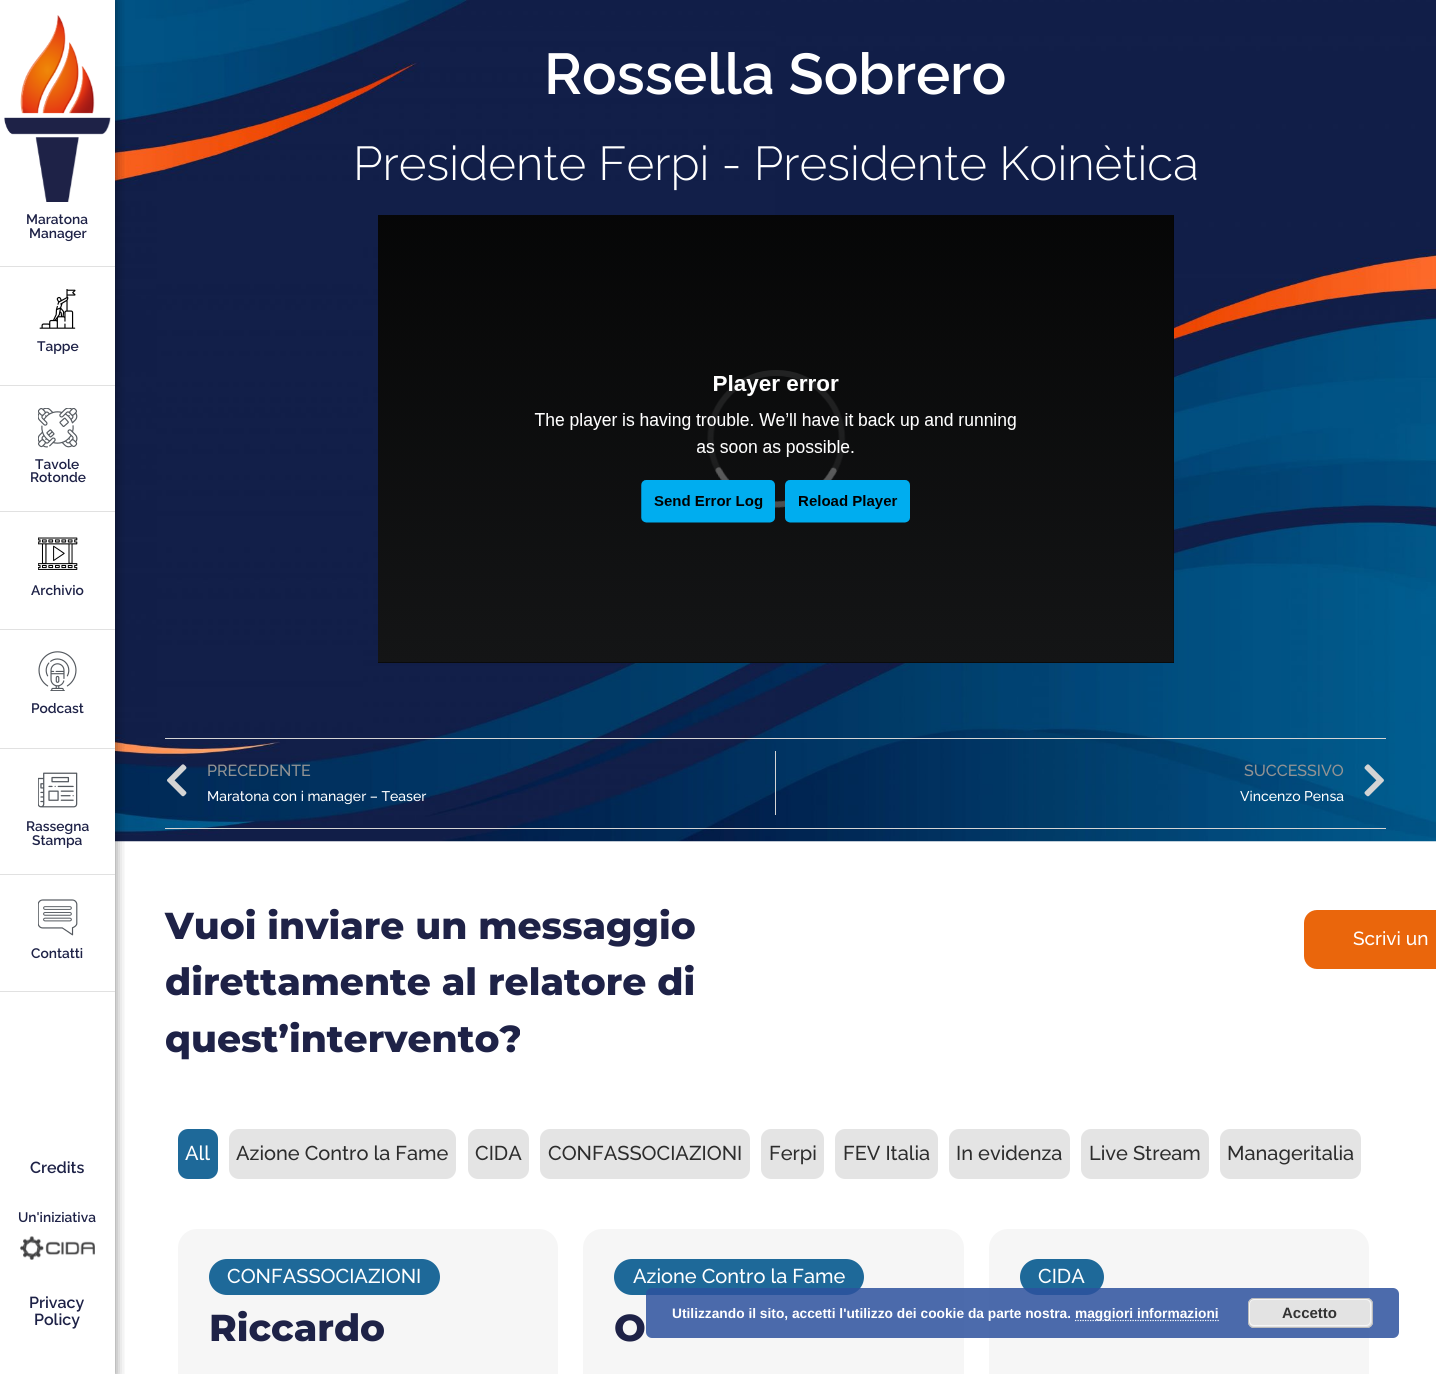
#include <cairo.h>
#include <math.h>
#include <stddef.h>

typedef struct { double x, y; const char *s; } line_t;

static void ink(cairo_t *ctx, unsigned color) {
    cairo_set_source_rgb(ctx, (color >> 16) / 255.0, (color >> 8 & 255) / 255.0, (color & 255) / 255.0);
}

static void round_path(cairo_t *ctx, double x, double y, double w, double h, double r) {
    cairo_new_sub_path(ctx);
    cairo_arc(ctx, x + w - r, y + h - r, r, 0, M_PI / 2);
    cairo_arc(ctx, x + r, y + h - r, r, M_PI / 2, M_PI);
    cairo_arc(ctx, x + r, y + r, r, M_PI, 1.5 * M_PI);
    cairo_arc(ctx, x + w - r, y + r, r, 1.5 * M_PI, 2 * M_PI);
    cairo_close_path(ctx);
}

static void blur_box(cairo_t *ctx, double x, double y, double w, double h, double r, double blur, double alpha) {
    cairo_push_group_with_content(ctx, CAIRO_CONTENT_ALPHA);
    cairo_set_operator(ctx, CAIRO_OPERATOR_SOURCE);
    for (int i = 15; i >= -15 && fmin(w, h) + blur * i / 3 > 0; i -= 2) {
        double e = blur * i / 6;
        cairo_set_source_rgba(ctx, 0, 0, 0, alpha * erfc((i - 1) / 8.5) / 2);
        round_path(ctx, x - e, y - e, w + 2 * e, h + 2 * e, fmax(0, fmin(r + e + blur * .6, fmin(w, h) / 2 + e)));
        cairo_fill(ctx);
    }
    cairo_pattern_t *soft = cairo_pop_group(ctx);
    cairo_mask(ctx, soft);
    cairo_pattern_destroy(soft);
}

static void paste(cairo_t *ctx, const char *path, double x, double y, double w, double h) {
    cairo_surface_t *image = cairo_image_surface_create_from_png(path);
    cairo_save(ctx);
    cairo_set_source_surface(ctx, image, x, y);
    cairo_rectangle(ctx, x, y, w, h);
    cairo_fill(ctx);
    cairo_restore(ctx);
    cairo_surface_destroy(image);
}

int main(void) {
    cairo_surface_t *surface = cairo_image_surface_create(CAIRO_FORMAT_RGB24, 1436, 1374);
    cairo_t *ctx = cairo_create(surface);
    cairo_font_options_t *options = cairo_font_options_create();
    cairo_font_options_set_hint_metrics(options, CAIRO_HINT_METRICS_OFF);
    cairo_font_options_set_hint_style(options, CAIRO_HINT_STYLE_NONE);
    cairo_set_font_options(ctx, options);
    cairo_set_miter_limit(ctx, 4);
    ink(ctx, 0xFFFFFF);
    cairo_paint(ctx);
    paste(ctx, "media/9.png", 115, 0, 1321, 842);
    cairo_save(ctx);
    cairo_rectangle(ctx, 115, 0, 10, 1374);
    cairo_clip(ctx);
    ink(ctx, 0x000000);
    blur_box(ctx, 0, 0, 115, 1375, 0, 6, 0.5);
    cairo_restore(ctx);
    paste(ctx, "media/1.png", 4, 15, 107, 187);
    cairo_select_font_face(ctx, "Raleway SemiBold", CAIRO_FONT_SLANT_NORMAL, CAIRO_FONT_WEIGHT_NORMAL);
    cairo_set_font_size(ctx, 13.75);
    ink(ctx, 0x1E2247);
    cairo_move_to(ctx, 26, 224);
    cairo_show_text(ctx, "Maratona");
    cairo_move_to(ctx, 29, 238);
    cairo_show_text(ctx, "Manager");
    ink(ctx, 0xE1E1E1);
    cairo_rectangle(ctx, 0, 266, 115, 1);
    cairo_fill(ctx);
    paste(ctx, "media/2.png", 39, 289, 37, 40);
    ink(ctx, 0x1E2247);
    cairo_move_to(ctx, 37, 351);
    cairo_show_text(ctx, "Tappe");
    ink(ctx, 0xE1E1E1);
    cairo_rectangle(ctx, 0, 385, 115, 1);
    cairo_fill(ctx);
    paste(ctx, "media/3.png", 38, 408, 40, 40);
    ink(ctx, 0x1E2247);
    cairo_move_to(ctx, 35, 469);
    cairo_show_text(ctx, "Tavole");
    cairo_move_to(ctx, 30, 482);
    cairo_show_text(ctx, "Rotonde");
    ink(ctx, 0xE1E1E1);
    cairo_rectangle(ctx, 0, 511, 115, 1);
    cairo_fill(ctx);
    paste(ctx, "media/4.png", 38, 537, 40, 33);
    ink(ctx, 0x1E2247);
    cairo_move_to(ctx, 31, 595);
    cairo_show_text(ctx, "Archivio");
    ink(ctx, 0xE1E1E1);
    cairo_rectangle(ctx, 0, 629, 115, 1);
    cairo_fill(ctx);
    paste(ctx, "media/5.png", 38, 651, 39, 40);
    ink(ctx, 0x1E2247);
    cairo_move_to(ctx, 31, 713);
    cairo_show_text(ctx, "Podcast");
    ink(ctx, 0xE1E1E1);
    cairo_rectangle(ctx, 0, 748, 115, 1);
    cairo_fill(ctx);
    paste(ctx, "media/6.png", 38, 772, 40, 36);
    ink(ctx, 0x1E2247);
    cairo_move_to(ctx, 26, 831);
    cairo_show_text(ctx, "Rassegna");
    cairo_move_to(ctx, 32, 845);
    cairo_show_text(ctx, "Stampa");
    ink(ctx, 0xE1E1E1);
    cairo_rectangle(ctx, 0, 874, 115, 1);
    cairo_fill(ctx);
    paste(ctx, "media/7.png", 38, 899, 40, 37);
    ink(ctx, 0x1E2247);
    cairo_move_to(ctx, 31, 958);
    cairo_show_text(ctx, "Contatti");
    ink(ctx, 0xE1E1E1);
    cairo_rectangle(ctx, 0, 991, 115, 1);
    cairo_fill(ctx);
    cairo_set_font_size(ctx, 16);
    ink(ctx, 0x1E2247);
    cairo_move_to(ctx, 30, 1173);
    cairo_show_text(ctx, "Credits");
    cairo_set_font_size(ctx, 13.75);
    cairo_move_to(ctx, 18, 1222);
    cairo_show_text(ctx, "Un'iniziativa");
    paste(ctx, "media/8.png", 20, 1236, 75, 24);
    cairo_set_font_size(ctx, 16);
    cairo_move_to(ctx, 29, 1308);
    cairo_show_text(ctx, "Privacy");
    cairo_move_to(ctx, 34, 1325);
    cairo_show_text(ctx, "Policy");
    cairo_set_font_size(ctx, 57.5);
    ink(ctx, 0xFFFFFF);
    cairo_move_to(ctx, 544, 94);
    cairo_show_text(ctx, "Rossella Sobrero");
    cairo_select_font_face(ctx, "Raleway Light", CAIRO_FONT_SLANT_NORMAL, CAIRO_FONT_WEIGHT_NORMAL);
    cairo_set_font_size(ctx, 47.5);
    cairo_move_to(ctx, 353, 180);
    cairo_show_text(ctx, "Presidente Ferpi - Presidente Koinètica");
    ink(ctx, 0x000000);
    cairo_rectangle(ctx, 378, 215, 796, 448);
    cairo_fill(ctx);
    paste(ctx, "media/10.png", 378, 215, 796, 448);
    ink(ctx, 0xD4D4D4);
    cairo_rectangle(ctx, 165, 738, 1221, 1);
    cairo_fill(ctx);
    cairo_rectangle(ctx, 165, 828, 1221, 1);
    cairo_fill(ctx);
    paste(ctx, "media/11.png", 167, 764, 20, 33);
    cairo_select_font_face(ctx, "Raleway Medium", CAIRO_FONT_SLANT_NORMAL, CAIRO_FONT_WEIGHT_NORMAL);
    cairo_set_font_size(ctx, 16);
    ink(ctx, 0x939393);
    cairo_move_to(ctx, 207, 776);
    cairo_show_text(ctx, "PRECEDENTE");
    cairo_set_font_size(ctx, 14);
    ink(ctx, 0xFFFFFF);
    cairo_move_to(ctx, 207, 801);
    cairo_show_text(ctx, "Maratona con i manager – Teaser");
    ink(ctx, 0xD4D4D4);
    cairo_rectangle(ctx, 775, 751, 1, 64);
    cairo_fill(ctx);
    cairo_set_font_size(ctx, 16);
    ink(ctx, 0x939393);
    cairo_move_to(ctx, 1244, 776);
    cairo_show_text(ctx, "SUCCESSIVO");
    cairo_set_font_size(ctx, 14);
    ink(ctx, 0xFFFFFF);
    cairo_move_to(ctx, 1240, 801);
    cairo_show_text(ctx, "Vincenzo Pensa");
    paste(ctx, "media/12.png", 1364, 764, 20, 33);
    cairo_select_font_face(ctx, "Montserrat Thin", CAIRO_FONT_SLANT_NORMAL, CAIRO_FONT_WEIGHT_NORMAL);
    cairo_set_font_size(ctx, 37.5);
    ink(ctx, 0x1E2247);
    {
        static const line_t items[] = {
            {165, 939, "Vuoi inviare un messaggio"},
            {165, 995, "direttamente al relatore di"},
            {165, 1052, "quest’intervento?"},
        };
        for (size_t i = 0; i < sizeof items / sizeof *items; i++) {
            cairo_move_to(ctx, items[i].x, items[i].y);
            cairo_show_text(ctx, items[i].s);
        }
    }
    ink(ctx, 0xEA660C);
    round_path(ctx, 1304, 910, 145, 59, 13);
    cairo_fill(ctx);
    cairo_select_font_face(ctx, "Raleway Medium", CAIRO_FONT_SLANT_NORMAL, CAIRO_FONT_WEIGHT_NORMAL);
    cairo_set_font_size(ctx, 19);
    ink(ctx, 0xFFFFFF);
    cairo_move_to(ctx, 1353, 945);
    cairo_show_text(ctx, "Scrivi un");
    ink(ctx, 0x1E6999);
    round_path(ctx, 178, 1129, 40, 50, 10);
    cairo_fill(ctx);
    cairo_set_font_size(ctx, 20);
    ink(ctx, 0xFFFFFF);
    cairo_move_to(ctx, 185, 1160);
    cairo_show_text(ctx, "All");
    ink(ctx, 0xE4E4E4);
    round_path(ctx, 229, 1129, 227, 50, 10);
    cairo_fill(ctx);
    ink(ctx, 0x2D2D2D);
    cairo_move_to(ctx, 236, 1160);
    cairo_show_text(ctx, "Azione Contro la Fame");
    ink(ctx, 0xE4E4E4);
    round_path(ctx, 468, 1129, 61, 50, 10);
    cairo_fill(ctx);
    ink(ctx, 0x2D2D2D);
    cairo_move_to(ctx, 475, 1160);
    cairo_show_text(ctx, "CIDA");
    ink(ctx, 0xE4E4E4);
    round_path(ctx, 540, 1129, 210, 50, 10);
    cairo_fill(ctx);
    ink(ctx, 0x2D2D2D);
    cairo_move_to(ctx, 548, 1160);
    cairo_show_text(ctx, "CONFASSOCIAZIONI");
    ink(ctx, 0xE4E4E4);
    round_path(ctx, 761, 1129, 63, 50, 10);
    cairo_fill(ctx);
    ink(ctx, 0x2D2D2D);
    cairo_move_to(ctx, 769, 1160);
    cairo_show_text(ctx, "Ferpi");
    ink(ctx, 0xE4E4E4);
    round_path(ctx, 835, 1129, 103, 50, 10);
    cairo_fill(ctx);
    ink(ctx, 0x2D2D2D);
    cairo_move_to(ctx, 843, 1160);
    cairo_show_text(ctx, "FEV Italia");
    ink(ctx, 0xE4E4E4);
    round_path(ctx, 949, 1129, 121, 50, 10);
    cairo_fill(ctx);
    ink(ctx, 0x2D2D2D);
    cairo_move_to(ctx, 956, 1160);
    cairo_show_text(ctx, "In evidenza");
    ink(ctx, 0xE4E4E4);
    round_path(ctx, 1081, 1129, 128, 50, 10);
    cairo_fill(ctx);
    ink(ctx, 0x2D2D2D);
    cairo_move_to(ctx, 1089, 1160);
    cairo_show_text(ctx, "Live Stream");
    ink(ctx, 0xE4E4E4);
    round_path(ctx, 1220, 1129, 141, 50, 10);
    cairo_fill(ctx);
    ink(ctx, 0x2D2D2D);
    cairo_move_to(ctx, 1227, 1160);
    cairo_show_text(ctx, "Manageritalia");
    ink(ctx, 0xF6F6F6);
    round_path(ctx, 178, 1229, 380, 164, 19);
    cairo_fill(ctx);
    ink(ctx, 0x1E6999);
    round_path(ctx, 209, 1259, 231, 36, 18);
    cairo_fill(ctx);
    ink(ctx, 0xFFFFFF);
    cairo_move_to(ctx, 227, 1283);
    cairo_show_text(ctx, "CONFASSOCIAZIONI");
    cairo_select_font_face(ctx, "Montserrat Thin", CAIRO_FONT_SLANT_NORMAL, CAIRO_FONT_WEIGHT_NORMAL);
    cairo_set_font_size(ctx, 37.5);
    ink(ctx, 0x1E2247);
    cairo_move_to(ctx, 209, 1341);
    cairo_show_text(ctx, "Riccardo");
    ink(ctx, 0xF6F6F6);
    round_path(ctx, 583, 1229, 381, 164, 19);
    cairo_fill(ctx);
    ink(ctx, 0x1E6999);
    round_path(ctx, 614, 1259, 250, 36, 18);
    cairo_fill(ctx);
    cairo_select_font_face(ctx, "Raleway Medium", CAIRO_FONT_SLANT_NORMAL, CAIRO_FONT_WEIGHT_NORMAL);
    cairo_set_font_size(ctx, 20);
    ink(ctx, 0xFFFFFF);
    cairo_move_to(ctx, 633, 1283);
    cairo_show_text(ctx, "Azione Contro la Fame");
    cairo_select_font_face(ctx, "Montserrat Thin", CAIRO_FONT_SLANT_NORMAL, CAIRO_FONT_WEIGHT_NORMAL);
    cairo_set_font_size(ctx, 37.5);
    ink(ctx, 0x1E2247);
    cairo_move_to(ctx, 614, 1341);
    cairo_show_text(ctx, "O");
    ink(ctx, 0xF6F6F6);
    round_path(ctx, 989, 1229, 380, 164, 19);
    cairo_fill(ctx);
    ink(ctx, 0x1E6999);
    round_path(ctx, 1020, 1259, 84, 36, 18);
    cairo_fill(ctx);
    cairo_select_font_face(ctx, "Raleway Medium", CAIRO_FONT_SLANT_NORMAL, CAIRO_FONT_WEIGHT_NORMAL);
    cairo_set_font_size(ctx, 20);
    ink(ctx, 0xFFFFFF);
    cairo_move_to(ctx, 1038, 1283);
    cairo_show_text(ctx, "CIDA");
    cairo_set_source_rgba(ctx, 0.176, 0.318, 0.616, 0.85);
    round_path(ctx, 646, 1288, 753, 50, 6);
    cairo_fill(ctx);
    cairo_select_font_face(ctx, "Liberation Sans", CAIRO_FONT_SLANT_NORMAL, CAIRO_FONT_WEIGHT_BOLD);
    cairo_set_font_size(ctx, 13.75);
    ink(ctx, 0xFFFFFF);
    cairo_move_to(ctx, 672, 1318);
    cairo_show_text(ctx, "Utilizzando il sito, accetti l'utilizzo dei cookie da parte nostra.");
    cairo_new_path(ctx);
    cairo_move_to(ctx, 1075, 1320.5);
    cairo_line_to(ctx, 1219, 1320.5);
    cairo_set_line_width(ctx, 1.2);
    cairo_set_dash(ctx, (double[]){1.25, 1.25}, 2, 0);
    cairo_stroke(ctx);
    cairo_move_to(ctx, 1075, 1318);
    cairo_show_text(ctx, "maggiori informazioni");
    ink(ctx, 0xE3E3E3);
    round_path(ctx, 1248, 1298, 125, 30, 6);
    cairo_fill(ctx);
    round_path(ctx, 1249.5, 1299.5, 121, 26, 4.5);
    ink(ctx, 0xF6F6F6);
    cairo_set_line_width(ctx, 1);
    cairo_set_dash(ctx, NULL, 0, 0);
    cairo_stroke(ctx);
    round_path(ctx, 1248.5, 1298.5, 124, 29, 5.5);
    ink(ctx, 0xBBBBBB);
    cairo_stroke(ctx);
    cairo_set_font_size(ctx, 15);
    ink(ctx, 0x333333);
    cairo_move_to(ctx, 1282, 1318);
    cairo_show_text(ctx, "Accetto");
    cairo_surface_write_to_png(surface, "image.png");
    cairo_font_options_destroy(options);
    cairo_destroy(ctx);
    cairo_surface_destroy(surface);
    return 0;
}
